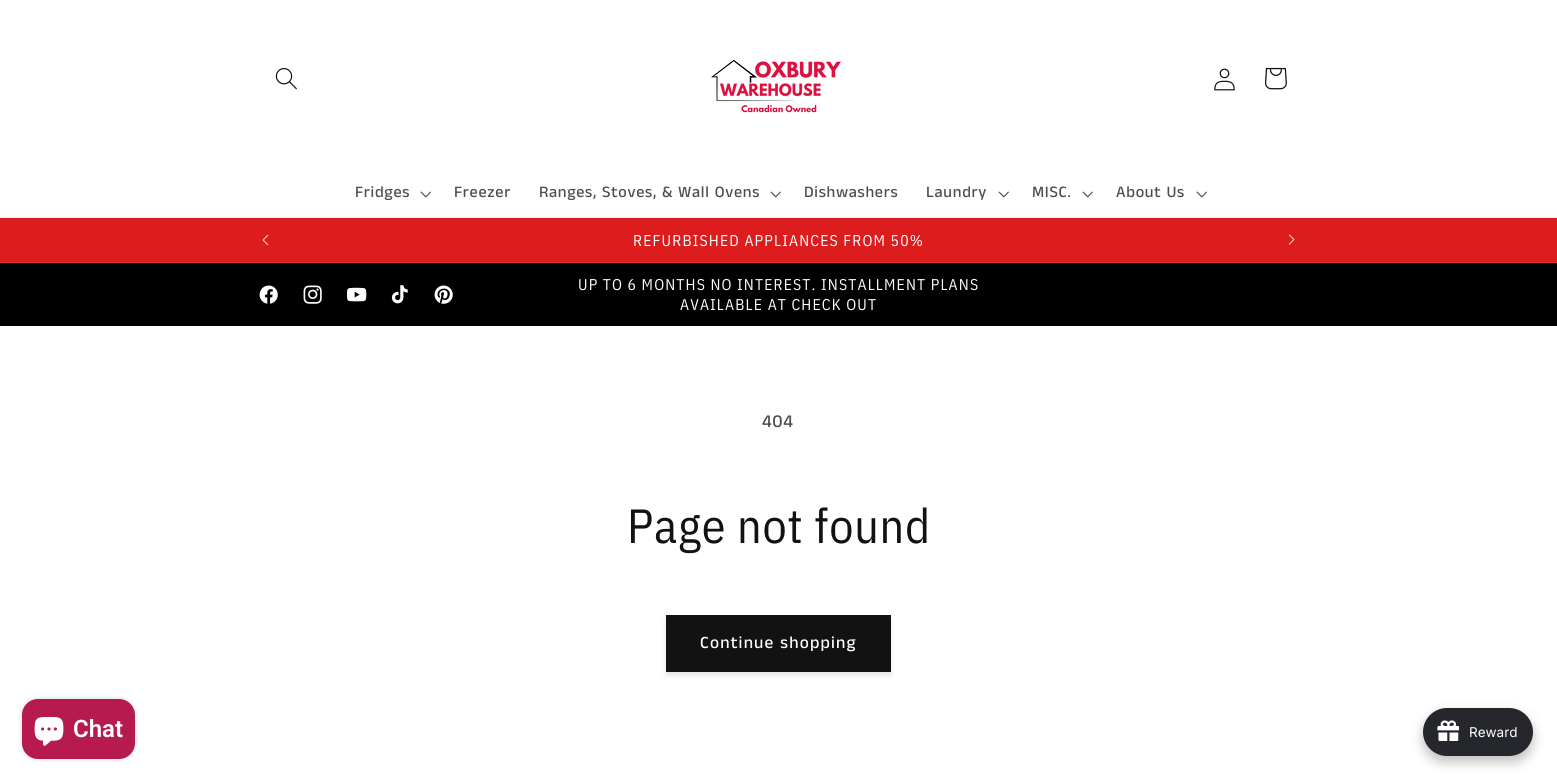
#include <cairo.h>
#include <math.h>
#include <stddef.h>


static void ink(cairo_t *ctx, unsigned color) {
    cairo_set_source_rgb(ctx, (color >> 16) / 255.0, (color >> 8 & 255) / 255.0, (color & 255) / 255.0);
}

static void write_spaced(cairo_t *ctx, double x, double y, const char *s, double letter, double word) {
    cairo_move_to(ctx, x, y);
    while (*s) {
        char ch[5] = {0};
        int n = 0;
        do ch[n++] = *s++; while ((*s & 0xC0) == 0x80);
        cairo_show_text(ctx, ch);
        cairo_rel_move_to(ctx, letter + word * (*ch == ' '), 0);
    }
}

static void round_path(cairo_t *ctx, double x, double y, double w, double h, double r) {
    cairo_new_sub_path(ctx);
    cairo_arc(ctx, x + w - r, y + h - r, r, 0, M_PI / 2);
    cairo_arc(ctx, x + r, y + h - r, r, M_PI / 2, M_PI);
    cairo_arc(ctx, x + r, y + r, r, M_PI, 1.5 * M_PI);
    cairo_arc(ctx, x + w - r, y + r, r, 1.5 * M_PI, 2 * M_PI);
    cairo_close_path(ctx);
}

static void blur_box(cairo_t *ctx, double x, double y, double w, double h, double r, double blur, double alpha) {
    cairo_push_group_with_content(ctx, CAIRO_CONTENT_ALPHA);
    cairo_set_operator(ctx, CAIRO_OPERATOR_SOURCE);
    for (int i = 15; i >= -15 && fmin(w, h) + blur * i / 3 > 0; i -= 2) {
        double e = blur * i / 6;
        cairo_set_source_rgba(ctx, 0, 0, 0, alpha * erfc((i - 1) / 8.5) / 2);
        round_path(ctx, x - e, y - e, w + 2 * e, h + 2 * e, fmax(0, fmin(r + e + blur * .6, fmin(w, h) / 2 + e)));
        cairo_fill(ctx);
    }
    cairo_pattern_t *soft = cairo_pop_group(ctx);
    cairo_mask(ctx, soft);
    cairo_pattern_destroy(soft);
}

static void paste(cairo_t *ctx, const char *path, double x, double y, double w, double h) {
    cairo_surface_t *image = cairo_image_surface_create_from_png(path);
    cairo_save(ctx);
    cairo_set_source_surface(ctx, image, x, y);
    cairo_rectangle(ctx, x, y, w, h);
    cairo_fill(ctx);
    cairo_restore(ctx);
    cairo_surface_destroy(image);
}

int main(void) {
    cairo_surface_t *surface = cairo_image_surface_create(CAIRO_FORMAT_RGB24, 1557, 780);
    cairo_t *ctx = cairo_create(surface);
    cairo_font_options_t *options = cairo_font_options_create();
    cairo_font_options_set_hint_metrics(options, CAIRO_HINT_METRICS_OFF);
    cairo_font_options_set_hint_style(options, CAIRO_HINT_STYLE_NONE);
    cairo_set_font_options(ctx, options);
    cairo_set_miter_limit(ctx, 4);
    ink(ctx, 0xFFFFFF);
    cairo_paint(ctx);
    ink(ctx, 0xECECEC);
    cairo_rectangle(ctx, 0, 217, 1557, 1);
    cairo_fill(ctx);
    paste(ctx, "media/1.png", 275, 68, 22, 22);
    paste(ctx, "media/2.png", 711, 59, 130, 54);
    paste(ctx, "media/3.png", 1214, 68, 21, 23);
    paste(ctx, "media/4.png", 1264, 67, 23, 23);
    cairo_select_font_face(ctx, "Anek Tamil Medium", CAIRO_FONT_SLANT_NORMAL, CAIRO_FONT_WEIGHT_NORMAL);
    cairo_set_font_size(ctx, 16.1);
    ink(ctx, 0x4D4D4D);
    write_spaced(ctx, 355, 197, "Fridges", 0.7, 0);
    paste(ctx, "media/5.png", 420, 191, 11, 7);
    write_spaced(ctx, 454, 197, "Freezer", 0.7, 0);
    write_spaced(ctx, 539, 197, "Ranges, Stoves, & Wall Ovens", 0.7, 0);
    paste(ctx, "media/5.png", 770, 191, 11, 7);
    write_spaced(ctx, 804, 197, "Dishwashers", 0.7, 0);
    write_spaced(ctx, 926, 197, "Laundry", 0.7, 0);
    paste(ctx, "media/5.png", 998, 191, 11, 7);
    write_spaced(ctx, 1032, 197, "MISC.", 0.7, 0);
    paste(ctx, "media/5.png", 1082, 191, 11, 7);
    write_spaced(ctx, 1116, 197, "About Us", 0.7, 0);
    paste(ctx, "media/5.png", 1196, 191, 11, 7);
    ink(ctx, 0xDD1D1D);
    cairo_rectangle(ctx, 0, 218, 1557, 44);
    cairo_fill(ctx);
    ink(ctx, 0xE02F2F);
    cairo_rectangle(ctx, 0, 262, 1557, 1);
    cairo_fill(ctx);
    paste(ctx, "media/6.png", 262, 234, 7, 12);
    cairo_select_font_face(ctx, "IBM Plex Sans Condensed", CAIRO_FONT_SLANT_NORMAL, CAIRO_FONT_WEIGHT_NORMAL);
    cairo_set_font_size(ctx, 15.6);
    ink(ctx, 0xFFFFFF);
    write_spaced(ctx, 633, 246, "REFURBISHED APPLIANCES FROM 50%", 1.15, 0);
    paste(ctx, "media/7.png", 1288, 234, 7, 11);
    ink(ctx, 0x010000);
    cairo_rectangle(ctx, 0, 263, 1557, 63);
    cairo_fill(ctx);
    paste(ctx, "media/8.png", 259, 285, 19, 19);
    paste(ctx, "media/9.png", 303, 285, 19, 19);
    paste(ctx, "media/10.png", 346, 287, 21, 15);
    paste(ctx, "media/11.png", 391, 285, 17, 19);
    paste(ctx, "media/12.png", 434, 285, 19, 19);
    ink(ctx, 0xFFFFFF);
    write_spaced(ctx, 578, 290, "UP TO 6 MONTHS NO INTEREST. INSTALLMENT PLANS", 1.15, 0);
    write_spaced(ctx, 680, 310, "AVAILABLE AT CHECK OUT", 1.15, 0);
    cairo_select_font_face(ctx, "Anek Tamil Medium", CAIRO_FONT_SLANT_NORMAL, CAIRO_FONT_WEIGHT_NORMAL);
    cairo_set_font_size(ctx, 18);
    ink(ctx, 0x4D4D4D);
    write_spaced(ctx, 762, 427, "404", 0.7, 0);
    cairo_select_font_face(ctx, "IBM Plex Sans Condensed", CAIRO_FONT_SLANT_NORMAL, CAIRO_FONT_WEIGHT_NORMAL);
    cairo_set_font_size(ctx, 48);
    ink(ctx, 0x121212);
    write_spaced(ctx, 627, 543, "Page not found", 0.75, 0);
    ink(ctx, 0x000000);
    blur_box(ctx, 666, 619, 225, 57, 0, 2.5, 0.1);
    ink(ctx, 0x121212);
    cairo_rectangle(ctx, 666, 615, 225, 57);
    cairo_fill(ctx);
    cairo_select_font_face(ctx, "Anek Tamil Medium", CAIRO_FONT_SLANT_NORMAL, CAIRO_FONT_WEIGHT_NORMAL);
    cairo_set_font_size(ctx, 17.25);
    ink(ctx, 0xFFFFFF);
    write_spaced(ctx, 700, 648, "Continue shopping", 1.15, 0);
    ink(ctx, 0x000000);
    blur_box(ctx, 22, 699, 113, 60, 16, 2.5, 0.15);
    ink(ctx, 0xB71A4E);
    round_path(ctx, 22, 699, 113, 60, 16);
    cairo_fill(ctx);
    paste(ctx, "media/13.png", 34, 717, 30, 29);
    cairo_select_font_face(ctx, "Roboto SemiBold", CAIRO_FONT_SLANT_NORMAL, CAIRO_FONT_WEIGHT_NORMAL);
    cairo_set_font_size(ctx, 24);
    ink(ctx, 0xFFFFFF);
    cairo_move_to(ctx, 73, 737);
    cairo_show_text(ctx, "Chat");
    ink(ctx, 0x000000);
    blur_box(ctx, 1423, 714, 110, 48, 24, 6, 0.25);
    ink(ctx, 0x25272C);
    round_path(ctx, 1423, 708, 110, 48, 24);
    cairo_fill(ctx);
    paste(ctx, "media/14.png", 1437, 720, 22, 21);
    cairo_select_font_face(ctx, "Inter", CAIRO_FONT_SLANT_NORMAL, CAIRO_FONT_WEIGHT_NORMAL);
    cairo_set_font_size(ctx, 13.5);
    ink(ctx, 0xFFFFFF);
    cairo_move_to(ctx, 1469, 737);
    cairo_show_text(ctx, "Reward");
    cairo_surface_write_to_png(surface, "image.png");
    cairo_font_options_destroy(options);
    cairo_destroy(ctx);
    cairo_surface_destroy(surface);
    return 0;
}
